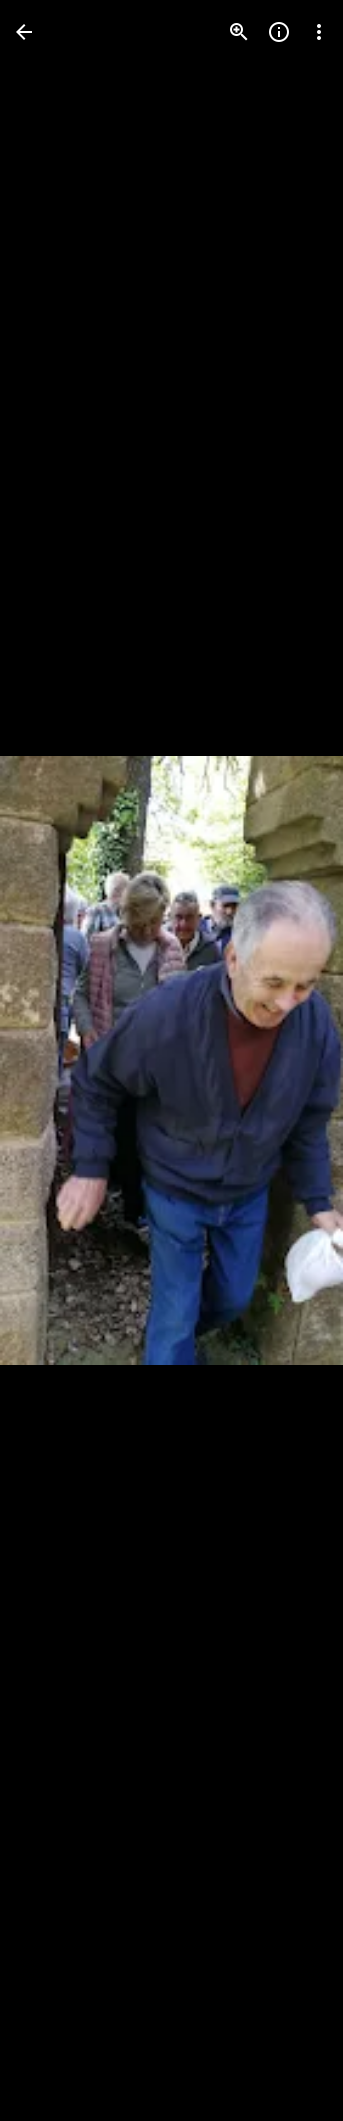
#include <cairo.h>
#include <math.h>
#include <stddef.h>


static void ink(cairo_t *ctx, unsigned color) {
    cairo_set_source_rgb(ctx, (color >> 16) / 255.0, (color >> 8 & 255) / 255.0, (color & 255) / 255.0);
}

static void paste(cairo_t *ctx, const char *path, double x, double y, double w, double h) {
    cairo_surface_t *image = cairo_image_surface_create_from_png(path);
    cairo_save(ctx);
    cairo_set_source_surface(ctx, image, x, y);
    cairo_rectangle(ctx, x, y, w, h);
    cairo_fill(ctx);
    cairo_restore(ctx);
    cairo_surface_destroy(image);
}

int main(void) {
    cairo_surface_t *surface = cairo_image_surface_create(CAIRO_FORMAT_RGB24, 343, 2121);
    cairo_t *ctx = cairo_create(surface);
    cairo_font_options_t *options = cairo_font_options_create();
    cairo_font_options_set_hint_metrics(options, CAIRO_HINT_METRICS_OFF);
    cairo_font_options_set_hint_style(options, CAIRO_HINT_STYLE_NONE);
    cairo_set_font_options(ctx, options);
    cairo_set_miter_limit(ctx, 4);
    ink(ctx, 0x000000);
    cairo_paint(ctx);
    paste(ctx, "media/1.png", 16, 24, 16, 16);
    paste(ctx, "media/2.png", 230, 23, 18, 18);
    paste(ctx, "media/3.png", 269, 22, 20, 20);
    paste(ctx, "media/4.png", 317, 24, 4, 16);
    paste(ctx, "media/5.png", 0, 756, 343, 609);
    cairo_surface_write_to_png(surface, "image.png");
    cairo_font_options_destroy(options);
    cairo_destroy(ctx);
    cairo_surface_destroy(surface);
    return 0;
}
